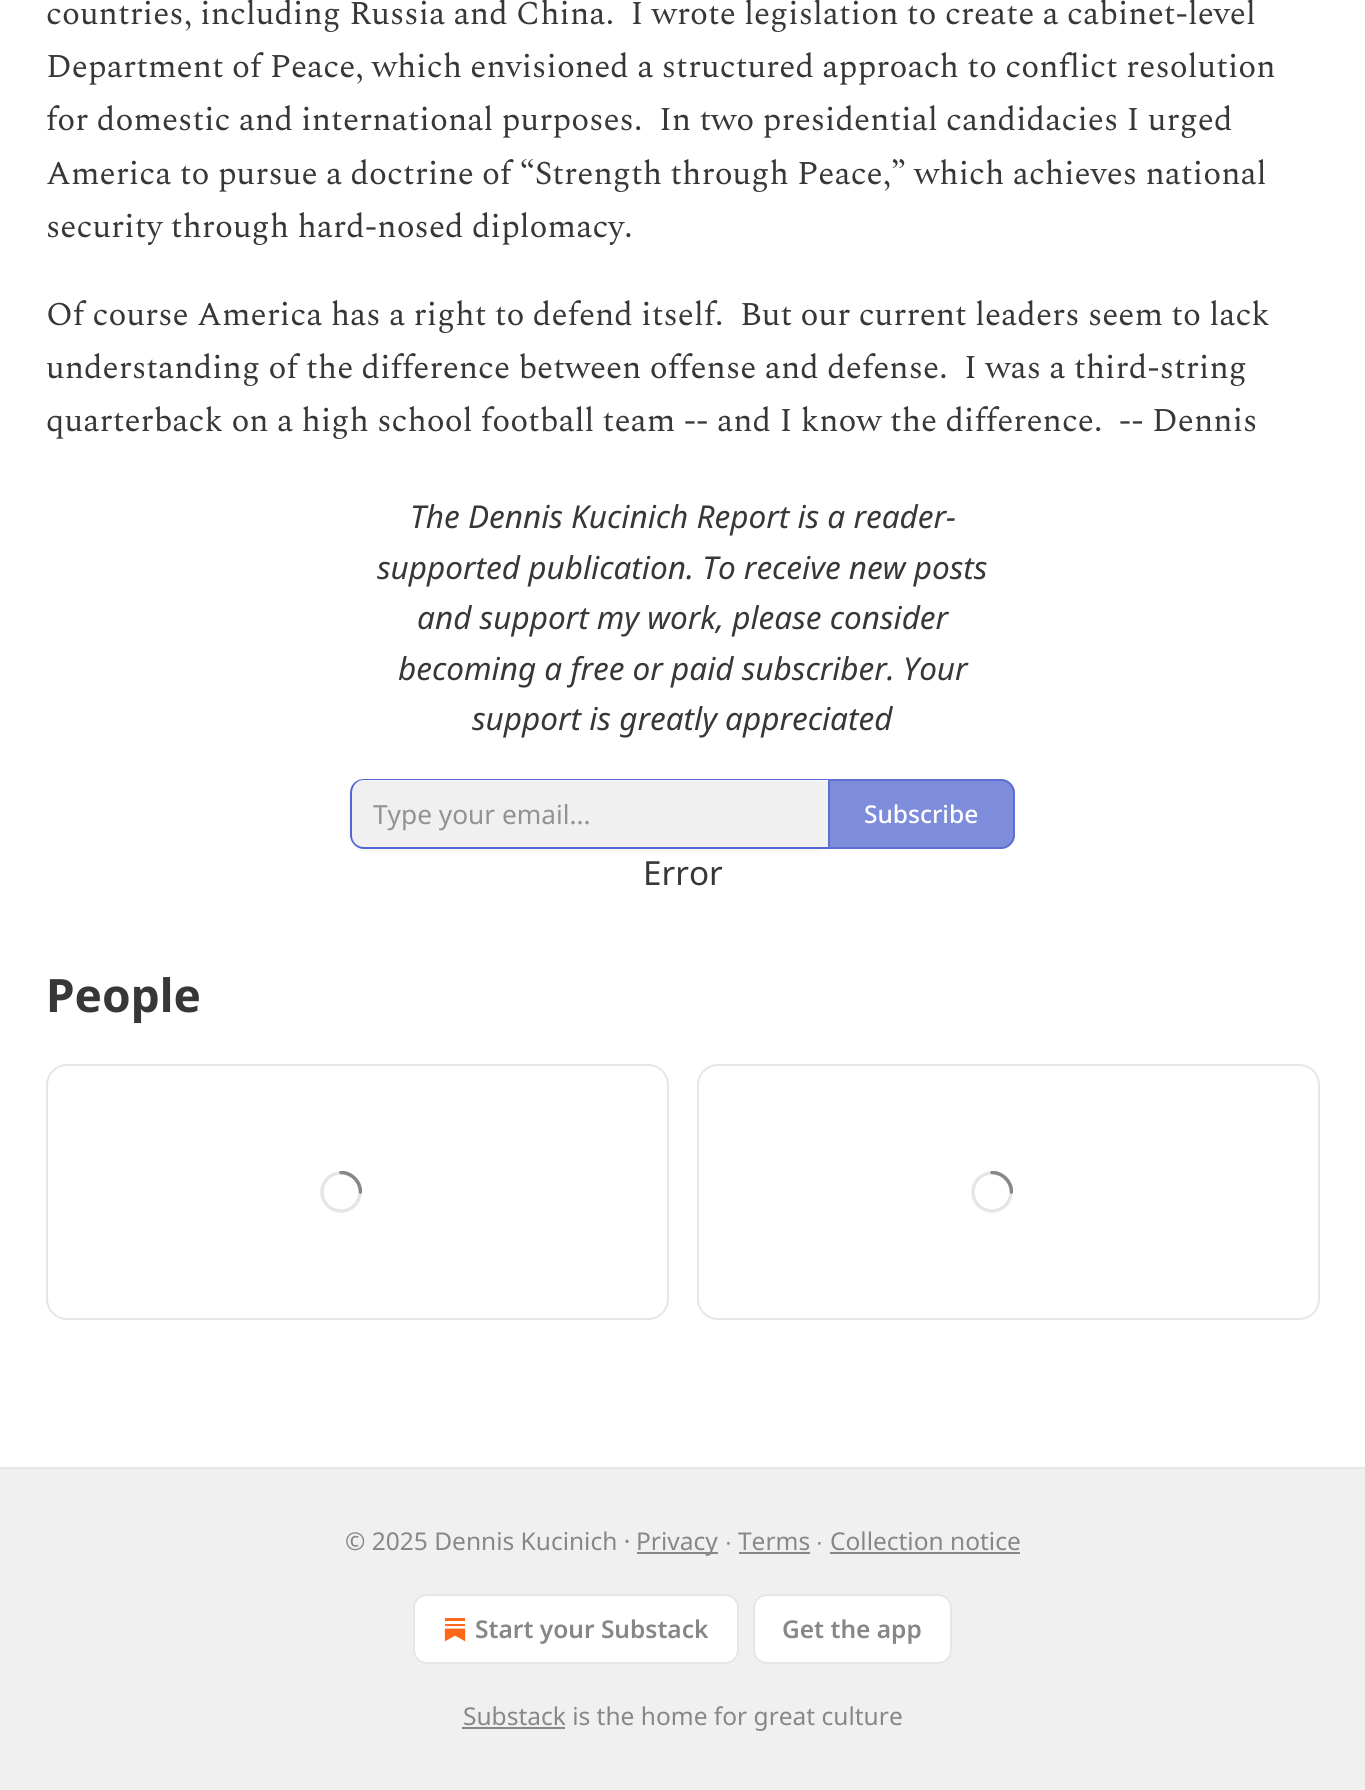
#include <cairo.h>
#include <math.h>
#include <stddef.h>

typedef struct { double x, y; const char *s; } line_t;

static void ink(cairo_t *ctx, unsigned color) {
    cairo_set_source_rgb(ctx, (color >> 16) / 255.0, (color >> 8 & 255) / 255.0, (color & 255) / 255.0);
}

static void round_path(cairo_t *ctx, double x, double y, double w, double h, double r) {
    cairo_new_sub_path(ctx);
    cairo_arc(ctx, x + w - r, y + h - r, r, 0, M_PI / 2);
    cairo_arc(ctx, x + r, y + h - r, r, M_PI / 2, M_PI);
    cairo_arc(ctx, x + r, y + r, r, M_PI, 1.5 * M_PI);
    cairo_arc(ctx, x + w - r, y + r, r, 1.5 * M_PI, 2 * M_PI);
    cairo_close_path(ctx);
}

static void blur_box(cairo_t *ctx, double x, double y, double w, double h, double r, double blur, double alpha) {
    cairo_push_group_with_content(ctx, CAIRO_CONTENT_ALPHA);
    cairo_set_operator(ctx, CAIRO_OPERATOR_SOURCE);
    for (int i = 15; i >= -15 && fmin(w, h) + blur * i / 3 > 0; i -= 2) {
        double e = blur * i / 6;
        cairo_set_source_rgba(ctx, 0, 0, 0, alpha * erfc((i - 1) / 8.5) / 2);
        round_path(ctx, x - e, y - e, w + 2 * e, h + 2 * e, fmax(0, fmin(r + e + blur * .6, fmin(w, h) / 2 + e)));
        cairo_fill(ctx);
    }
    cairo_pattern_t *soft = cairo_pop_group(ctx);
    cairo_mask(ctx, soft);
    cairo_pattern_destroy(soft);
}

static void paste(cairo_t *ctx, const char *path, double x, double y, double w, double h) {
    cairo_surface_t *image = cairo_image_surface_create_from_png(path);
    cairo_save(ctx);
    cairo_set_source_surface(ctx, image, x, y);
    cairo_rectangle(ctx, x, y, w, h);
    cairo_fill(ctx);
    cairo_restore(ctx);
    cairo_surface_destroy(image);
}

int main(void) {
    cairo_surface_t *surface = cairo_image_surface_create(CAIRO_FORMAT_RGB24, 1365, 1790);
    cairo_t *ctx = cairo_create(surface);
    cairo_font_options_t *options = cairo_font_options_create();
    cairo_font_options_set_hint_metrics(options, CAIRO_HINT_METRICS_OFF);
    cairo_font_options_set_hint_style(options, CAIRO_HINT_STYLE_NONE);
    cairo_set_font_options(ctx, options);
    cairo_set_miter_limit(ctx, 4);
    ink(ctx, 0xFFFFFF);
    cairo_paint(ctx);
    cairo_select_font_face(ctx, "Spectral", CAIRO_FONT_SLANT_NORMAL, CAIRO_FONT_WEIGHT_NORMAL);
    cairo_set_font_size(ctx, 33.25);
    ink(ctx, 0x363737);
    {
        static const line_t items[] = {
            {46, 24, "countries, including Russia and China.  I wrote legislation to create a cabinet-level"},
            {46, 77, "Department of Peace, which envisioned a structured approach to conflict resolution"},
            {46, 130, "for domestic and international purposes.  In two presidential candidacies I urged"},
            {46, 184, "America to pursue a doctrine of “Strength through Peace,” which achieves national"},
            {46, 237, "security through hard-nosed diplomacy."},
            {46, 325, "Of course America has a right to defend itself.  But our current leaders seem to lack"},
            {46, 378, "understanding of the difference between offense and defense.  I was a third-string"},
            {46, 431, "quarterback on a high school football team -- and I know the difference.  -- Dennis"},
        };
        for (size_t i = 0; i < sizeof items / sizeof *items; i++) {
            cairo_move_to(ctx, items[i].x, items[i].y);
            cairo_show_text(ctx, items[i].s);
        }
    }
    cairo_select_font_face(ctx, "Noto Sans", CAIRO_FONT_SLANT_ITALIC, CAIRO_FONT_WEIGHT_NORMAL);
    cairo_set_font_size(ctx, 31.5);
    {
        static const line_t items[] = {
            {410, 528, "The Dennis Kucinich Report is a reader-"},
            {377, 579, "supported publication. To receive new posts"},
            {417, 629, "and support my work, please consider"},
            {398, 680, "becoming a free or paid subscriber. Your"},
            {472, 730, "support is greatly appreciated"},
        };
        for (size_t i = 0; i < sizeof items / sizeof *items; i++) {
            cairo_move_to(ctx, items[i].x, items[i].y);
            cairo_show_text(ctx, items[i].s);
        }
    }
    ink(ctx, 0x000000);
    blur_box(ctx, 350, 781, 478, 70, 14, 2, 0.05);
    ink(ctx, 0xF0F0F0);
    cairo_new_path(ctx);
    cairo_move_to(ctx, 364, 781);
    cairo_line_to(ctx, 828, 781);
    cairo_line_to(ctx, 828, 847);
    cairo_line_to(ctx, 364, 847);
    cairo_curve_to(ctx, 357.5, 847, 352, 841.5, 352, 835);
    cairo_line_to(ctx, 352, 793);
    cairo_curve_to(ctx, 352, 786.5, 357.5, 781, 364, 781);
    cairo_close_path(ctx);
    cairo_fill(ctx);
    ink(ctx, 0x5365D0);
    cairo_set_fill_rule(ctx, CAIRO_FILL_RULE_EVEN_ODD);
    cairo_new_path(ctx);
    cairo_move_to(ctx, 364, 779);
    cairo_line_to(ctx, 828, 779);
    cairo_line_to(ctx, 828, 849);
    cairo_line_to(ctx, 364, 849);
    cairo_curve_to(ctx, 356, 849, 350, 842, 350, 835);
    cairo_line_to(ctx, 350, 793);
    cairo_curve_to(ctx, 350, 785, 356, 779, 364, 779);
    cairo_close_path(ctx);
    cairo_move_to(ctx, 364, 780);
    cairo_line_to(ctx, 828, 780);
    cairo_line_to(ctx, 828, 847);
    cairo_line_to(ctx, 364, 847);
    cairo_curve_to(ctx, 357, 847, 352, 842, 352, 835);
    cairo_line_to(ctx, 352, 793);
    cairo_curve_to(ctx, 352, 786, 357, 780, 364, 780);
    cairo_close_path(ctx);
    cairo_fill(ctx);
    cairo_select_font_face(ctx, "Noto Sans", CAIRO_FONT_SLANT_NORMAL, CAIRO_FONT_WEIGHT_NORMAL);
    cairo_set_font_size(ctx, 26.25);
    ink(ctx, 0x929292);
    cairo_move_to(ctx, 373, 824);
    cairo_show_text(ctx, "Type your email...");
    cairo_set_source_rgba(ctx, 0.325, 0.396, 0.816, 0.75);
    cairo_new_path(ctx);
    cairo_move_to(ctx, 828, 779);
    cairo_line_to(ctx, 1001, 779);
    cairo_curve_to(ctx, 1008.5, 779, 1015, 785.5, 1015, 793);
    cairo_line_to(ctx, 1015, 835);
    cairo_curve_to(ctx, 1015, 842.5, 1008.5, 849, 1001, 849);
    cairo_line_to(ctx, 828, 849);
    cairo_close_path(ctx);
    cairo_fill(ctx);
    cairo_new_path(ctx);
    cairo_move_to(ctx, 829, 780);
    cairo_line_to(ctx, 1001, 780);
    cairo_curve_to(ctx, 1008, 780, 1014, 786, 1014, 793);
    cairo_line_to(ctx, 1014, 835);
    cairo_curve_to(ctx, 1014, 842, 1008, 848, 1001, 848);
    cairo_line_to(ctx, 829, 848);
    cairo_close_path(ctx);
    cairo_stroke(ctx);
    cairo_select_font_face(ctx, "Noto Sans Medium", CAIRO_FONT_SLANT_NORMAL, CAIRO_FONT_WEIGHT_NORMAL);
    cairo_set_font_size(ctx, 24.5);
    ink(ctx, 0xFFFFFF);
    cairo_move_to(ctx, 864, 823);
    cairo_show_text(ctx, "Subscribe");
    cairo_select_font_face(ctx, "Noto Sans", CAIRO_FONT_SLANT_NORMAL, CAIRO_FONT_WEIGHT_NORMAL);
    cairo_set_font_size(ctx, 33.25);
    ink(ctx, 0x363737);
    cairo_move_to(ctx, 643, 885);
    cairo_show_text(ctx, "Error");
    cairo_select_font_face(ctx, "Noto Sans", CAIRO_FONT_SLANT_NORMAL, CAIRO_FONT_WEIGHT_BOLD);
    cairo_set_font_size(ctx, 46);
    cairo_move_to(ctx, 46, 1012);
    cairo_show_text(ctx, "People");
    round_path(ctx, 47, 1065, 621, 254, 20);
    ink(ctx, 0xE6E6E6);
    cairo_stroke(ctx);
    cairo_arc(ctx, 341, 1192, 19, 0, 2 * M_PI);
    cairo_set_line_width(ctx, 3.5);
    cairo_stroke(ctx);
    cairo_save(ctx);
    cairo_set_fill_rule(ctx, CAIRO_FILL_RULE_WINDING);
    cairo_rectangle(ctx, 320, 1171, 42, 42);
    cairo_clip(ctx);
    cairo_new_path(ctx);
    cairo_move_to(ctx, 341, 1172.5);
    cairo_curve_to(ctx, 351.5, 1172.5, 360.5, 1181.5, 360.5, 1192);
    ink(ctx, 0x868787);
    cairo_set_line_cap(ctx, CAIRO_LINE_CAP_ROUND);
    cairo_stroke(ctx);
    cairo_restore(ctx);
    round_path(ctx, 698, 1065, 621, 254, 20);
    cairo_set_line_width(ctx, 2);
    cairo_stroke(ctx);
    cairo_arc(ctx, 992, 1192, 19, 0, 2 * M_PI);
    cairo_set_line_width(ctx, 3.5);
    cairo_stroke(ctx);
    cairo_save(ctx);
    cairo_set_fill_rule(ctx, CAIRO_FILL_RULE_WINDING);
    cairo_rectangle(ctx, 971, 1171, 42, 42);
    cairo_clip(ctx);
    cairo_new_path(ctx);
    cairo_move_to(ctx, 992, 1172.5);
    cairo_curve_to(ctx, 1002.5, 1172.5, 1011.5, 1181.5, 1011.5, 1192);
    ink(ctx, 0x868787);
    cairo_set_line_cap(ctx, CAIRO_LINE_CAP_ROUND);
    cairo_stroke(ctx);
    cairo_restore(ctx);
    ink(ctx, 0xF0F0F0);
    cairo_rectangle(ctx, 0, 1469, 1365, 321);
    cairo_fill(ctx);
    ink(ctx, 0xE6E6E6);
    cairo_rectangle(ctx, 0, 1467, 1365, 2);
    cairo_fill(ctx);
    cairo_select_font_face(ctx, "Noto Sans", CAIRO_FONT_SLANT_NORMAL, CAIRO_FONT_WEIGHT_NORMAL);
    cairo_set_font_size(ctx, 24.5);
    ink(ctx, 0x868787);
    cairo_move_to(ctx, 345, 1550);
    cairo_show_text(ctx, "© 2025 Dennis Kucinich ·");
    cairo_rectangle(ctx, 637, 1552, 81, 2);
    cairo_fill(ctx);
    cairo_move_to(ctx, 636, 1550);
    cairo_show_text(ctx, "Privacy");
    cairo_select_font_face(ctx, "Liberation Sans", CAIRO_FONT_SLANT_NORMAL, CAIRO_FONT_WEIGHT_NORMAL);
    cairo_move_to(ctx, 725, 1550);
    cairo_show_text(ctx, "∙");
    cairo_select_font_face(ctx, "Noto Sans", CAIRO_FONT_SLANT_NORMAL, CAIRO_FONT_WEIGHT_NORMAL);
    cairo_move_to(ctx, 738, 1550);
    cairo_show_text(ctx, "Terms");
    cairo_rectangle(ctx, 739, 1552, 71, 2);
    cairo_fill(ctx);
    cairo_select_font_face(ctx, "Liberation Sans", CAIRO_FONT_SLANT_NORMAL, CAIRO_FONT_WEIGHT_NORMAL);
    cairo_move_to(ctx, 816, 1550);
    cairo_show_text(ctx, "∙");
    cairo_select_font_face(ctx, "Noto Sans", CAIRO_FONT_SLANT_NORMAL, CAIRO_FONT_WEIGHT_NORMAL);
    cairo_move_to(ctx, 830, 1550);
    cairo_show_text(ctx, "Collection notice");
    cairo_rectangle(ctx, 830, 1552, 190, 2);
    cairo_fill(ctx);
    ink(ctx, 0xFFFFFF);
    round_path(ctx, 414, 1595, 324, 68, 13);
    cairo_fill_preserve(ctx);
    ink(ctx, 0xE6E6E6);
    cairo_set_line_width(ctx, 2);
    cairo_stroke(ctx);
    paste(ctx, "media/1.png", 444, 1618, 22, 24);
    cairo_select_font_face(ctx, "Noto Sans SemiBold", CAIRO_FONT_SLANT_NORMAL, CAIRO_FONT_WEIGHT_NORMAL);
    ink(ctx, 0x868787);
    cairo_move_to(ctx, 475, 1638);
    cairo_show_text(ctx, "Start your Substack");
    ink(ctx, 0xFFFFFF);
    round_path(ctx, 754, 1595, 197, 68, 13);
    cairo_fill_preserve(ctx);
    ink(ctx, 0xE6E6E6);
    cairo_stroke(ctx);
    ink(ctx, 0x868787);
    cairo_move_to(ctx, 782, 1638);
    cairo_show_text(ctx, "Get the app");
    cairo_rectangle(ctx, 462, 1727, 103, 2);
    cairo_fill(ctx);
    cairo_select_font_face(ctx, "Noto Sans", CAIRO_FONT_SLANT_NORMAL, CAIRO_FONT_WEIGHT_NORMAL);
    cairo_move_to(ctx, 463, 1725);
    cairo_show_text(ctx, "Substack is the home for great culture");
    cairo_surface_write_to_png(surface, "image.png");
    cairo_font_options_destroy(options);
    cairo_destroy(ctx);
    cairo_surface_destroy(surface);
    return 0;
}
